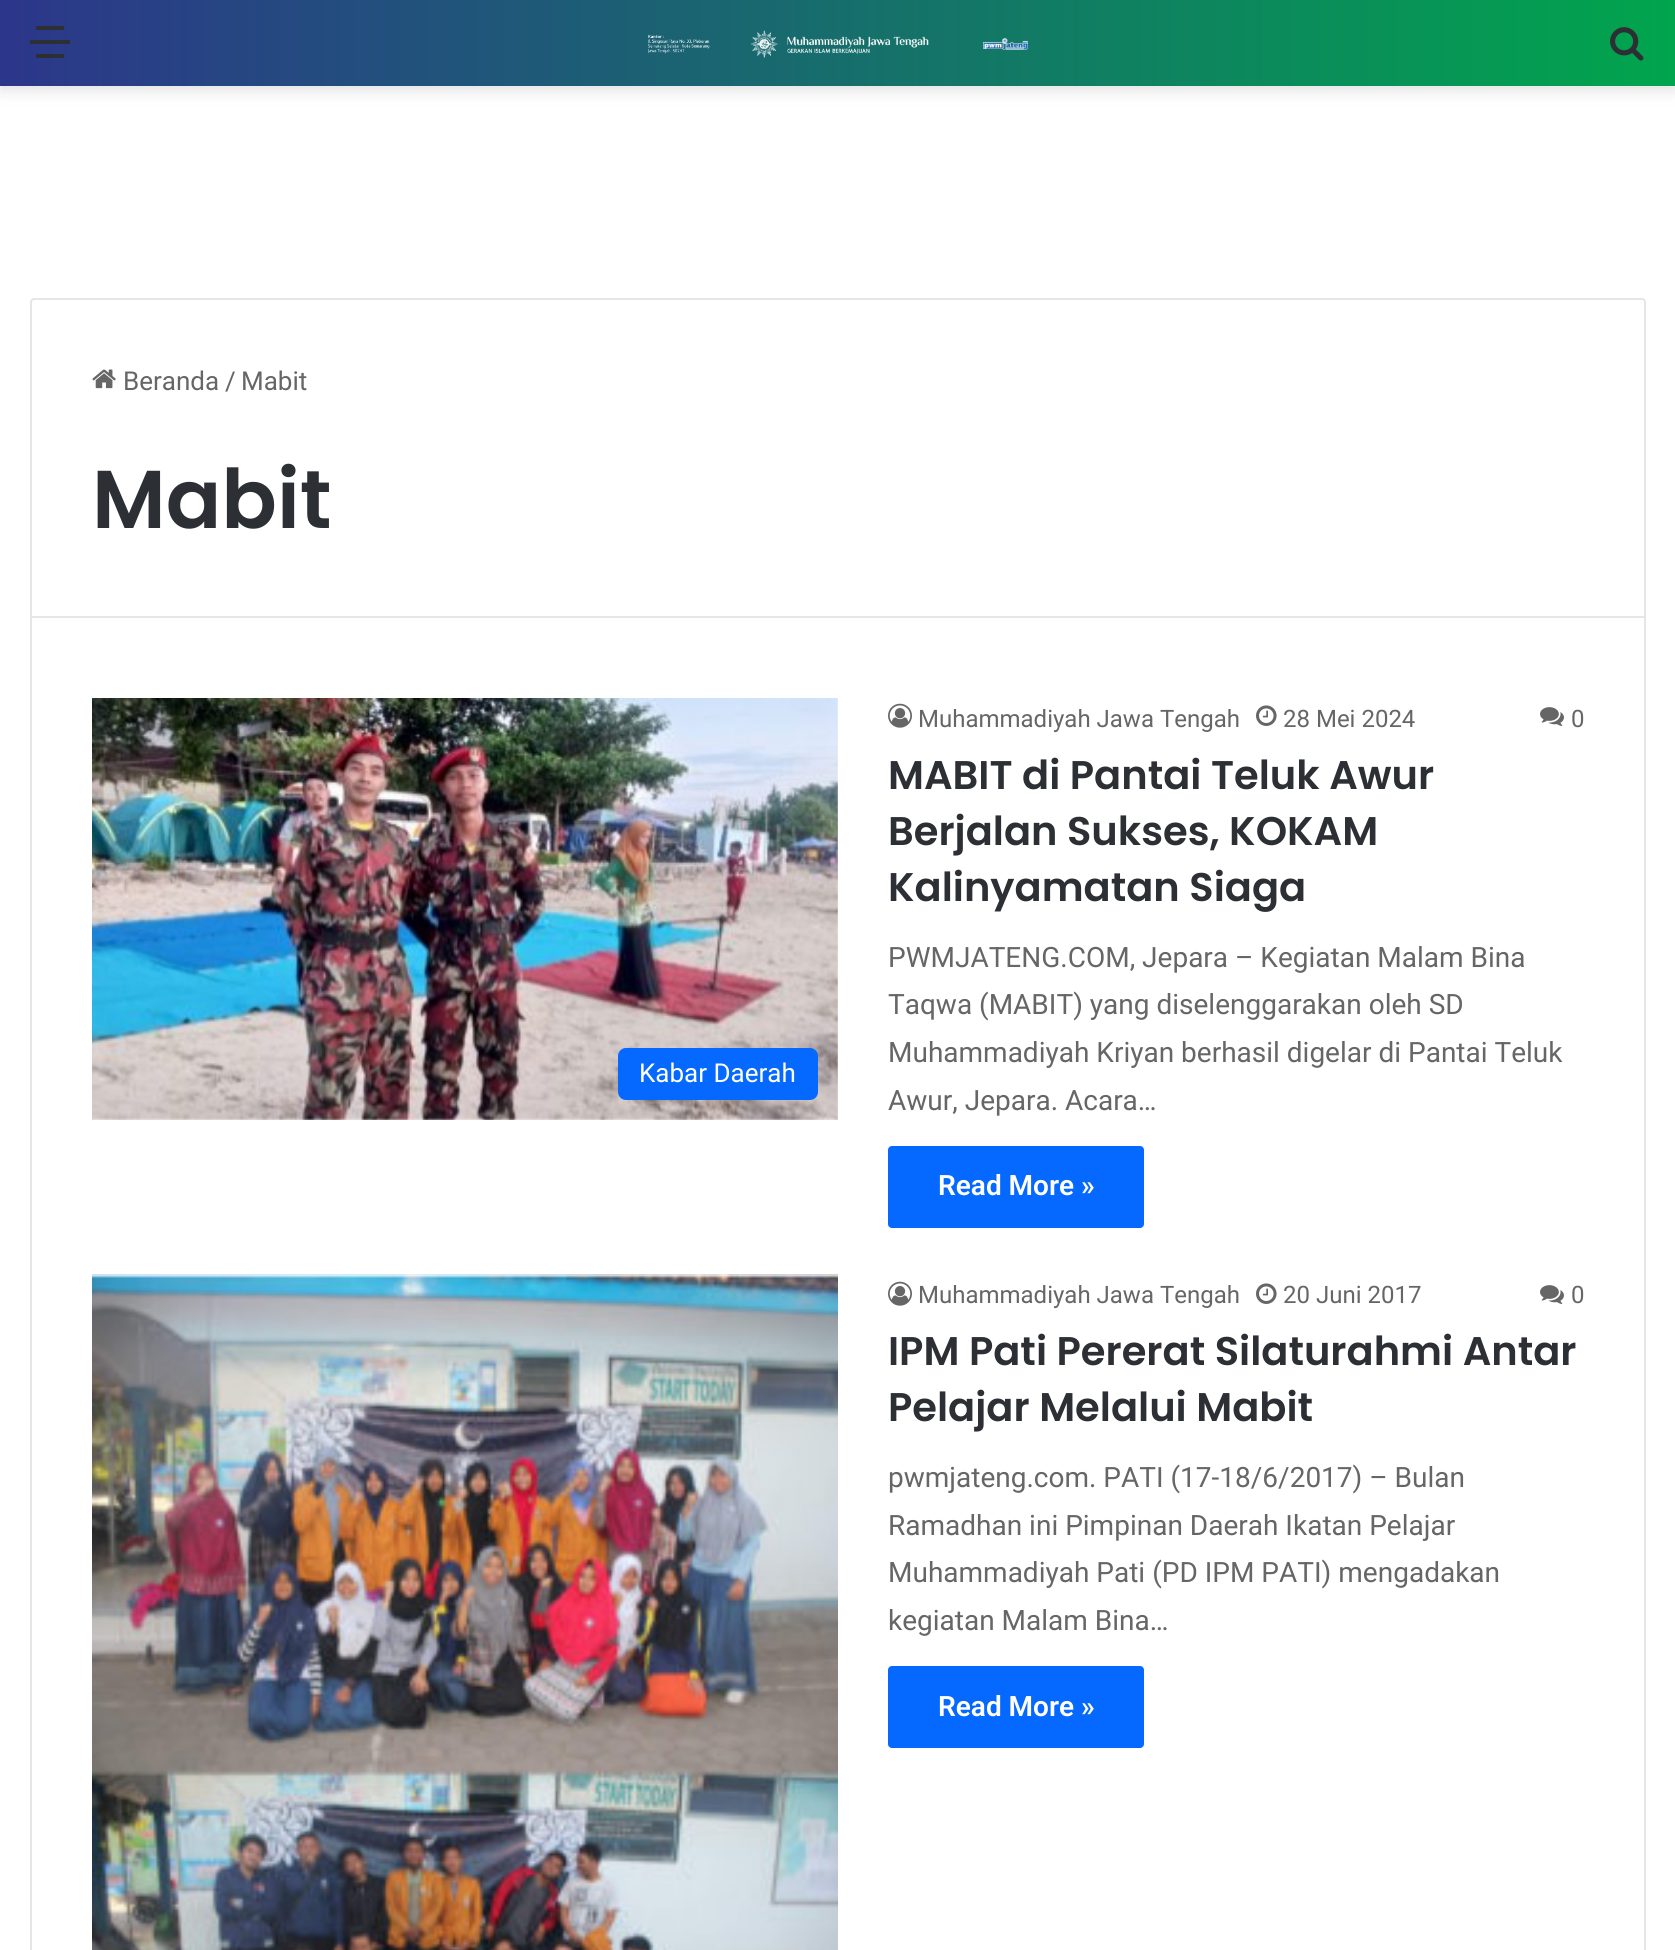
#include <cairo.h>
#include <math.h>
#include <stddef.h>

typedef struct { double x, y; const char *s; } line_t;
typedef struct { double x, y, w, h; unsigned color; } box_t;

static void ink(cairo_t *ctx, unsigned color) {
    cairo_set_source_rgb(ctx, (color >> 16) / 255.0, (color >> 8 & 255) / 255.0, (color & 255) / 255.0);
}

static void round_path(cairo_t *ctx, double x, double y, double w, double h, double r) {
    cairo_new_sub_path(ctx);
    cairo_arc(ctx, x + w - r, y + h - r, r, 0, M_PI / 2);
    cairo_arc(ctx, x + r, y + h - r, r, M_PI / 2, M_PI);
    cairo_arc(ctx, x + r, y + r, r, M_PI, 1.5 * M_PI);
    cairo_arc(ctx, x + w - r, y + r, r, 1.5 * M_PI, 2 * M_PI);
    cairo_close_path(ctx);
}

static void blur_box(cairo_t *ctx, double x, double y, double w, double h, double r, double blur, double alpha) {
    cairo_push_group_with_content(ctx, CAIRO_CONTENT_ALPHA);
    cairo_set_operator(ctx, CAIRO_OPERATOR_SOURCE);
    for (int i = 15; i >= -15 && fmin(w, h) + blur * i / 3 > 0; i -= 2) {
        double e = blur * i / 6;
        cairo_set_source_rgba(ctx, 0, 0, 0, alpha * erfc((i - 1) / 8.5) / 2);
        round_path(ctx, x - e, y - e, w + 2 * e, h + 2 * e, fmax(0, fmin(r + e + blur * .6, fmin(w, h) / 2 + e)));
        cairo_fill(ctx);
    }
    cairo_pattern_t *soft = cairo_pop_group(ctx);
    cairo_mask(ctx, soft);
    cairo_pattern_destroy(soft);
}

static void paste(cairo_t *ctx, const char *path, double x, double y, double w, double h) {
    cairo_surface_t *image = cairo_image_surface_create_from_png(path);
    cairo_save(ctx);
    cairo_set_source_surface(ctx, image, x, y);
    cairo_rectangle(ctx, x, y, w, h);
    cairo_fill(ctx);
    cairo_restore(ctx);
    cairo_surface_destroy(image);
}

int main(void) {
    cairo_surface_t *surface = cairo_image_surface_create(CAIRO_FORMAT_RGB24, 1675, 1950);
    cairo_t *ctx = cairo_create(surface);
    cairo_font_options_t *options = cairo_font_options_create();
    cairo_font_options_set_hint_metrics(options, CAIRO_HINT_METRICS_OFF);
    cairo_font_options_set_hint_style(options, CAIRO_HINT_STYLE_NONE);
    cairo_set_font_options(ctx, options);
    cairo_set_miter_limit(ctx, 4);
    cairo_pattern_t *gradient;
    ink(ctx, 0xFFFFFF);
    cairo_paint(ctx);
    ink(ctx, 0x636363);
    blur_box(ctx, 0, 4, 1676, 86, 0, 8, 0.2);
    gradient = cairo_pattern_create_linear(0, 43, 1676, 43);
    cairo_pattern_add_color_stop_rgba(gradient, 0, 0.173, 0.212, 0.545, 1);
    cairo_pattern_add_color_stop_rgba(gradient, 1, 0.004, 0.647, 0.302, 1);
    cairo_set_source(ctx, gradient);
    cairo_pattern_destroy(gradient);
    cairo_rectangle(ctx, 0, 0, 1675, 86);
    cairo_fill(ctx);
    {
        static const box_t items[] = {
            {30, 40, 40, 4, 0x2C2F34},
            {36, 26, 28, 4, 0x2C2F34},
            {36, 54, 28, 4, 0x2C2F34},
        };
        for (size_t i = 0; i < sizeof items / sizeof *items; i++) {
            ink(ctx, items[i].color);
            cairo_rectangle(ctx, items[i].x, items[i].y, items[i].w, items[i].h);
            cairo_fill(ctx);
        }
    }
    paste(ctx, "media/1.png", 648, 30, 380, 28);
    paste(ctx, "media/2.png", 1610, 27, 34, 34);
    cairo_new_path(ctx);
    cairo_move_to(ctx, 34, 299);
    cairo_line_to(ctx, 1642, 299);
    cairo_curve_to(ctx, 1643.5, 299, 1645, 300.5, 1645, 302);
    cairo_line_to(ctx, 1645, 617);
    cairo_line_to(ctx, 31, 617);
    cairo_line_to(ctx, 31, 302);
    cairo_curve_to(ctx, 31, 300.5, 32.5, 299, 34, 299);
    cairo_close_path(ctx);
    ink(ctx, 0xE6E6E6);
    cairo_stroke(ctx);
    paste(ctx, "media/3.png", 92, 369, 24, 20);
    cairo_select_font_face(ctx, "Roboto", CAIRO_FONT_SLANT_NORMAL, CAIRO_FONT_WEIGHT_NORMAL);
    cairo_set_font_size(ctx, 26);
    ink(ctx, 0x666666);
    {
        static const line_t items[] = {
            {123, 390, "Beranda"},
            {225, 390, "/"},
            {241, 390, "Mabit"},
        };
        for (size_t i = 0; i < sizeof items / sizeof *items; i++) {
            cairo_move_to(ctx, items[i].x, items[i].y);
            cairo_show_text(ctx, items[i].s);
        }
    }
    cairo_select_font_face(ctx, "Poppins SemiBold", CAIRO_FONT_SLANT_NORMAL, CAIRO_FONT_WEIGHT_NORMAL);
    cairo_set_font_size(ctx, 82);
    ink(ctx, 0x2C2F34);
    cairo_move_to(ctx, 92, 528);
    cairo_show_text(ctx, "Mabit");
    ink(ctx, 0xE6E6E6);
    cairo_rectangle(ctx, 1644, 618, 2, 1332);
    cairo_fill(ctx);
    cairo_rectangle(ctx, 30, 618, 2, 1332);
    cairo_fill(ctx);
    paste(ctx, "media/4.png", 92, 698, 746, 422);
    ink(ctx, 0x0669FF);
    round_path(ctx, 618, 1048, 200, 52, 8);
    cairo_fill(ctx);
    cairo_select_font_face(ctx, "Roboto", CAIRO_FONT_SLANT_NORMAL, CAIRO_FONT_WEIGHT_NORMAL);
    cairo_set_font_size(ctx, 26);
    ink(ctx, 0xFFFFFF);
    cairo_move_to(ctx, 639, 1082);
    cairo_show_text(ctx, "Kabar Daerah");
    paste(ctx, "media/5.png", 888, 703, 24, 25);
    cairo_set_font_size(ctx, 24);
    ink(ctx, 0x666666);
    cairo_move_to(ctx, 918, 727);
    cairo_show_text(ctx, "Muhammadiyah Jawa Tengah");
    paste(ctx, "media/6.png", 1256, 705, 21, 21);
    cairo_move_to(ctx, 1283, 727);
    cairo_show_text(ctx, "28 Mei 2024");
    paste(ctx, "media/7.png", 1540, 707, 24, 19);
    cairo_move_to(ctx, 1571, 727);
    cairo_show_text(ctx, "0");
    cairo_select_font_face(ctx, "Poppins SemiBold", CAIRO_FONT_SLANT_NORMAL, CAIRO_FONT_WEIGHT_NORMAL);
    cairo_set_font_size(ctx, 40);
    ink(ctx, 0x2C2F34);
    {
        static const line_t items[] = {
            {888, 789, "MABIT di Pantai Teluk Awur"},
            {888, 845, "Berjalan Sukses, KOKAM"},
            {888, 901, "Kalinyamatan Siaga"},
        };
        for (size_t i = 0; i < sizeof items / sizeof *items; i++) {
            cairo_move_to(ctx, items[i].x, items[i].y);
            cairo_show_text(ctx, items[i].s);
        }
    }
    cairo_select_font_face(ctx, "Roboto", CAIRO_FONT_SLANT_NORMAL, CAIRO_FONT_WEIGHT_NORMAL);
    cairo_set_font_size(ctx, 28);
    ink(ctx, 0x666666);
    {
        static const line_t items[] = {
            {888, 967, "PWMJATENG.COM, Jepara – Kegiatan Malam Bina"},
            {888, 1014, "Taqwa (MABIT) yang diselenggarakan oleh SD"},
            {888, 1062, "Muhammadiyah Kriyan berhasil digelar di Pantai Teluk"},
            {888, 1110, "Awur, Jepara. Acara…"},
        };
        for (size_t i = 0; i < sizeof items / sizeof *items; i++) {
            cairo_move_to(ctx, items[i].x, items[i].y);
            cairo_show_text(ctx, items[i].s);
        }
    }
    ink(ctx, 0x0669FF);
    round_path(ctx, 888, 1146, 256, 82, 4);
    cairo_fill(ctx);
    cairo_select_font_face(ctx, "Roboto SemiBold", CAIRO_FONT_SLANT_NORMAL, CAIRO_FONT_WEIGHT_NORMAL);
    ink(ctx, 0xFFFFFF);
    cairo_move_to(ctx, 938, 1195);
    cairo_show_text(ctx, "Read More »");
    paste(ctx, "media/8.png", 92, 1274, 746, 676);
    paste(ctx, "media/5.png", 888, 1281, 24, 25);
    cairo_select_font_face(ctx, "Roboto", CAIRO_FONT_SLANT_NORMAL, CAIRO_FONT_WEIGHT_NORMAL);
    cairo_set_font_size(ctx, 24);
    ink(ctx, 0x666666);
    cairo_move_to(ctx, 918, 1303);
    cairo_show_text(ctx, "Muhammadiyah Jawa Tengah");
    paste(ctx, "media/6.png", 1256, 1283, 21, 21);
    cairo_move_to(ctx, 1283, 1303);
    cairo_show_text(ctx, "20 Juni 2017");
    paste(ctx, "media/7.png", 1540, 1285, 24, 19);
    cairo_move_to(ctx, 1571, 1303);
    cairo_show_text(ctx, "0");
    cairo_select_font_face(ctx, "Poppins SemiBold", CAIRO_FONT_SLANT_NORMAL, CAIRO_FONT_WEIGHT_NORMAL);
    cairo_set_font_size(ctx, 40);
    ink(ctx, 0x2C2F34);
    cairo_move_to(ctx, 888, 1365);
    cairo_show_text(ctx, "IPM Pati Pererat Silaturahmi Antar");
    cairo_move_to(ctx, 888, 1421);
    cairo_show_text(ctx, "Pelajar Melalui Mabit");
    cairo_select_font_face(ctx, "Roboto", CAIRO_FONT_SLANT_NORMAL, CAIRO_FONT_WEIGHT_NORMAL);
    cairo_set_font_size(ctx, 28);
    ink(ctx, 0x666666);
    {
        static const line_t items[] = {
            {888, 1487, "pwmjateng.com. PATI (17-18/6/2017) – Bulan"},
            {888, 1535, "Ramadhan ini Pimpinan Daerah Ikatan Pelajar"},
            {888, 1582, "Muhammadiyah Pati (PD IPM PATI) mengadakan"},
            {888, 1630, "kegiatan Malam Bina…"},
        };
        for (size_t i = 0; i < sizeof items / sizeof *items; i++) {
            cairo_move_to(ctx, items[i].x, items[i].y);
            cairo_show_text(ctx, items[i].s);
        }
    }
    ink(ctx, 0x0669FF);
    round_path(ctx, 888, 1666, 256, 82, 4);
    cairo_fill(ctx);
    cairo_select_font_face(ctx, "Roboto SemiBold", CAIRO_FONT_SLANT_NORMAL, CAIRO_FONT_WEIGHT_NORMAL);
    ink(ctx, 0xFFFFFF);
    cairo_move_to(ctx, 938, 1716);
    cairo_show_text(ctx, "Read More »");
    cairo_surface_write_to_png(surface, "image.png");
    cairo_font_options_destroy(options);
    cairo_destroy(ctx);
    cairo_surface_destroy(surface);
    return 0;
}
